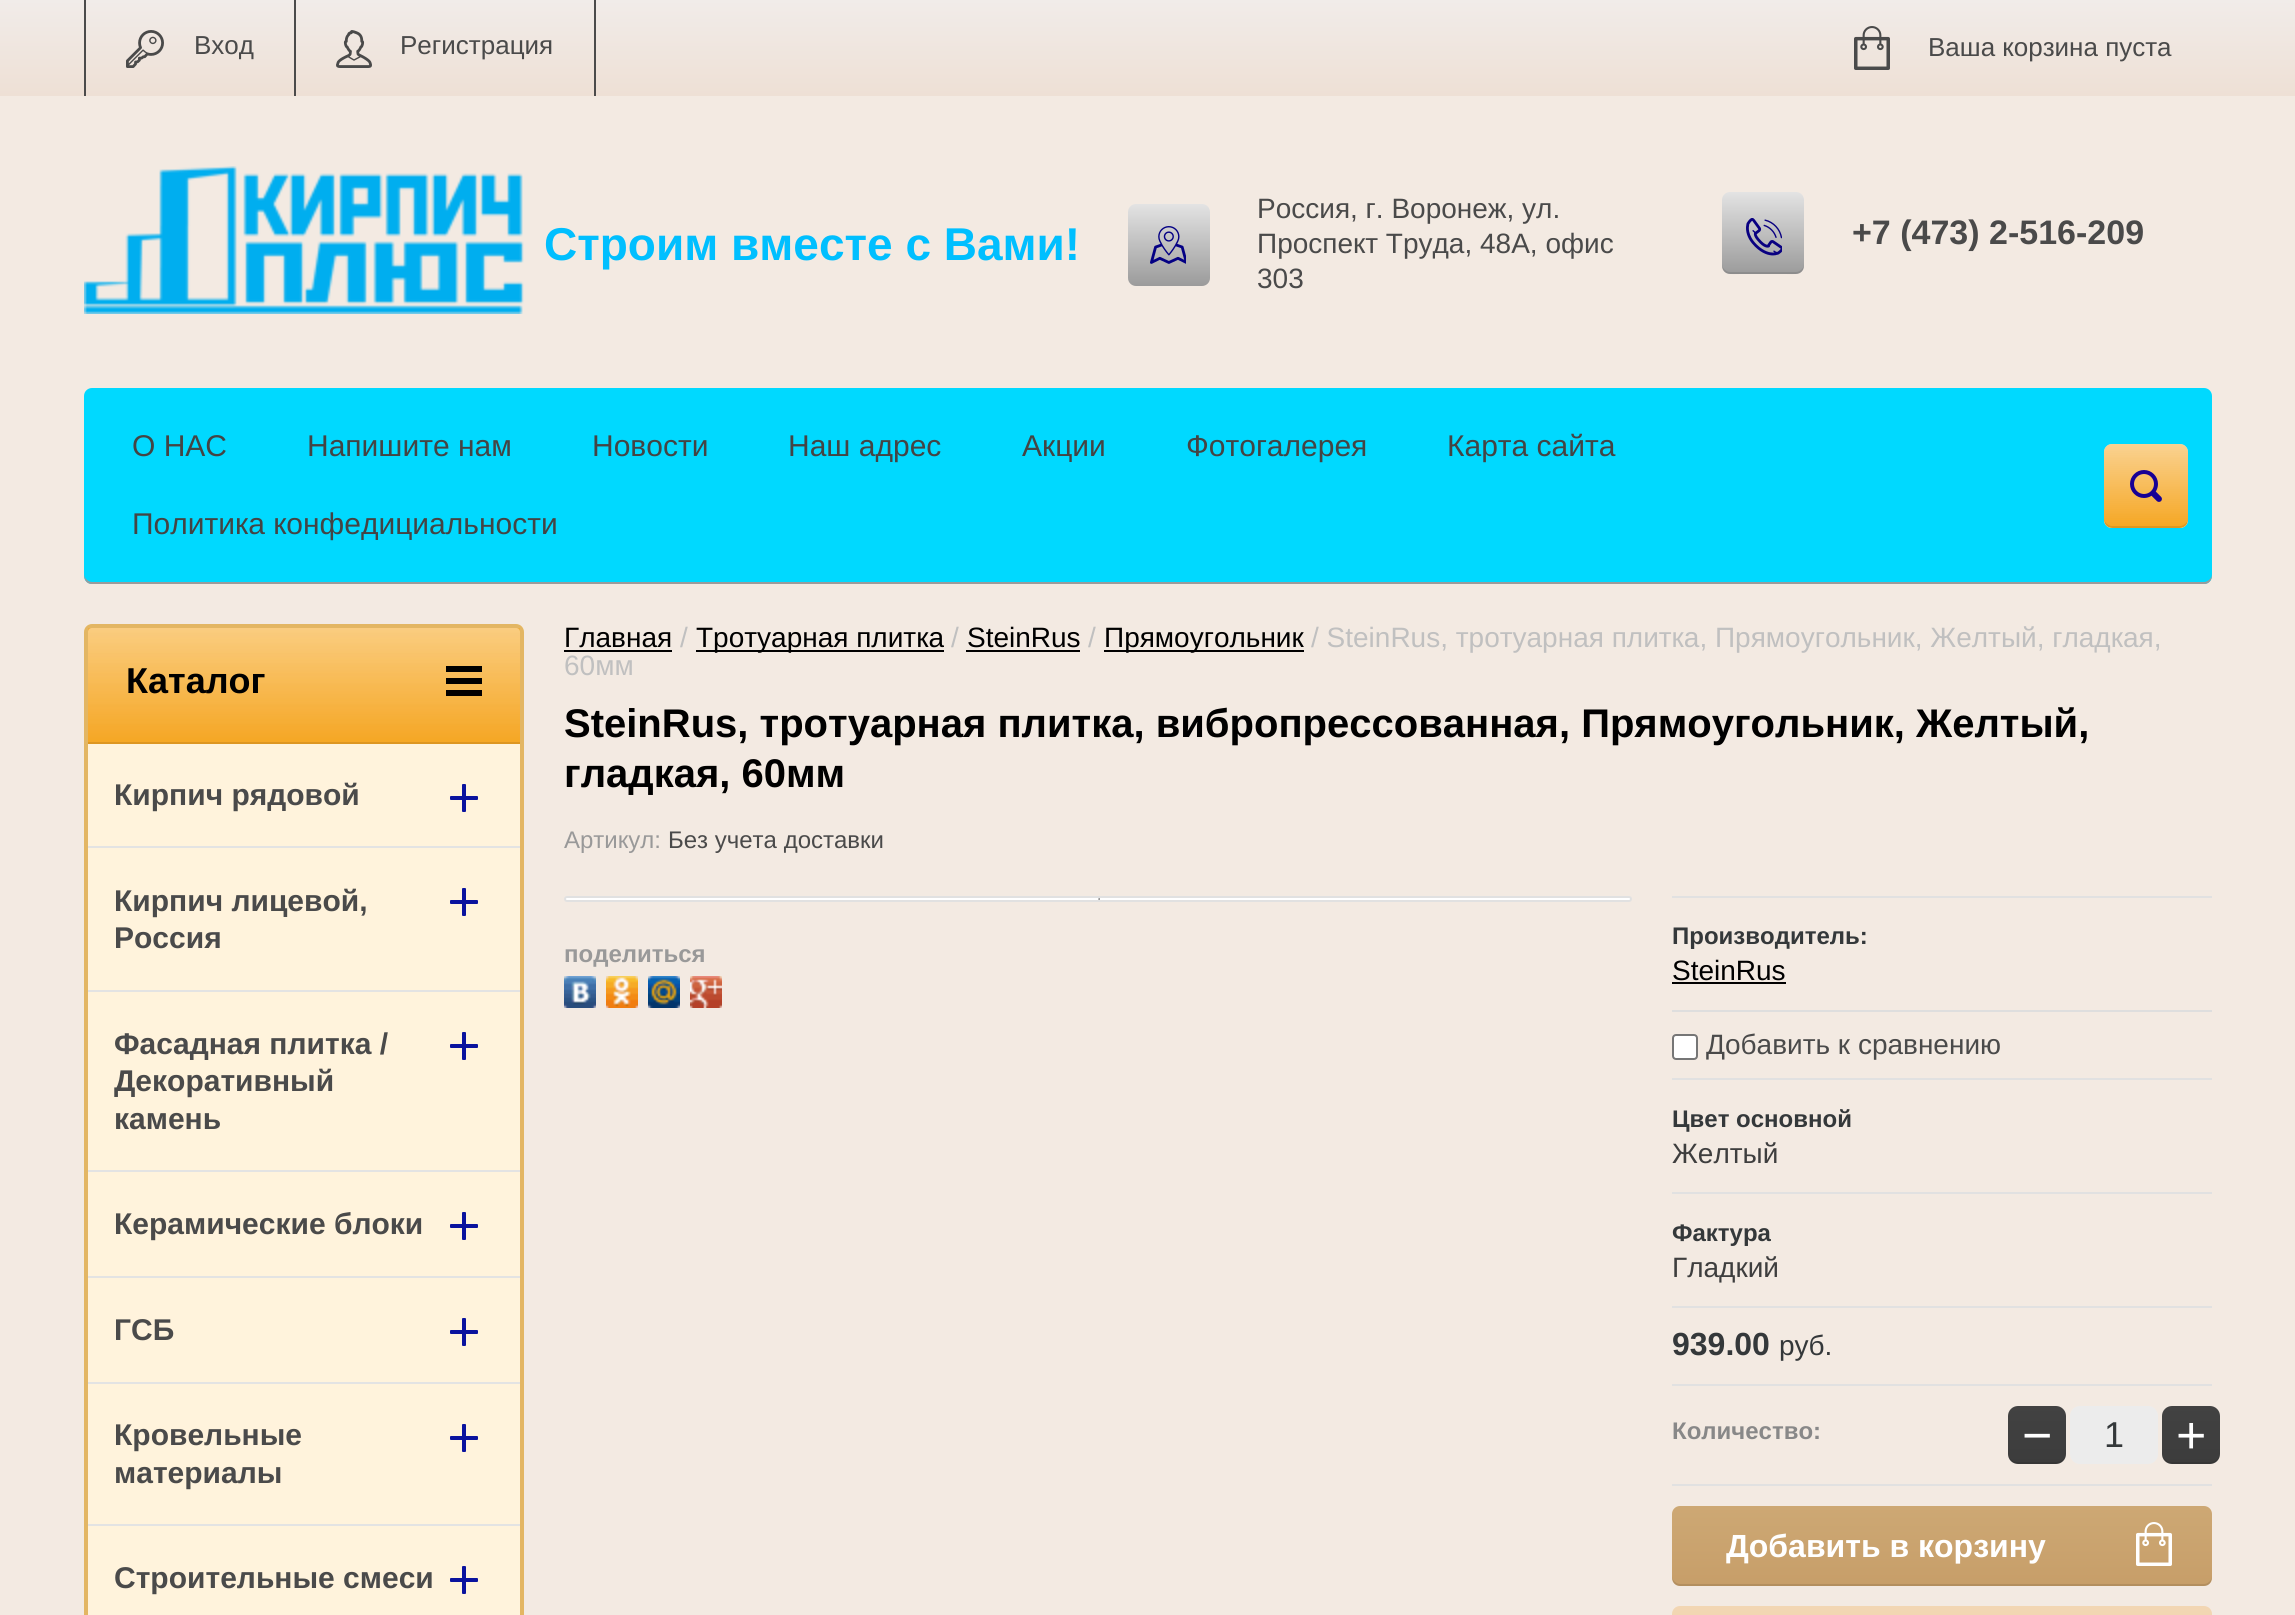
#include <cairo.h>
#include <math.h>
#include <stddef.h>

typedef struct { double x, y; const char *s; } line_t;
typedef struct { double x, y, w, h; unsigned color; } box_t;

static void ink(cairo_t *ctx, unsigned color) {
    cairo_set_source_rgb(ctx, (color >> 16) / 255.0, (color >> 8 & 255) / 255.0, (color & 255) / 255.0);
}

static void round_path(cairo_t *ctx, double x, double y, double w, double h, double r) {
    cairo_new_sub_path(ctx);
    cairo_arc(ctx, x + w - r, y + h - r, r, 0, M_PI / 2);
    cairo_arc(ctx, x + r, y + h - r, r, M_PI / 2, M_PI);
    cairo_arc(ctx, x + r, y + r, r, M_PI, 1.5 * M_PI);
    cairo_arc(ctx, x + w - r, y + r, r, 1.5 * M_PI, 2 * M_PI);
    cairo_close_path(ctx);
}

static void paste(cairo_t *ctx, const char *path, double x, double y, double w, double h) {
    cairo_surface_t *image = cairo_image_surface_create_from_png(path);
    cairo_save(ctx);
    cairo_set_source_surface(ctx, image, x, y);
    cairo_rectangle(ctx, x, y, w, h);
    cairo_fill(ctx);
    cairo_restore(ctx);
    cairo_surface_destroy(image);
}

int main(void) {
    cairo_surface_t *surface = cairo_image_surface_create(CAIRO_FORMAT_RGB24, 2295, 1615);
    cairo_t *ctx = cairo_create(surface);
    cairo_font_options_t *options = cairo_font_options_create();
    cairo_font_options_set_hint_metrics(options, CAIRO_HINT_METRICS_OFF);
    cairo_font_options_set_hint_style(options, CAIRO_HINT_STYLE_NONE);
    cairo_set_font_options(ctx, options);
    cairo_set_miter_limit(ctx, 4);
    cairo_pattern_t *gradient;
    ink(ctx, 0xF3EAE2);
    cairo_paint(ctx);
    gradient = cairo_pattern_create_linear(1148, 96, 1148, 0);
    cairo_pattern_add_color_stop_rgba(gradient, 0, 0.933, 0.878, 0.835, 1);
    cairo_pattern_add_color_stop_rgba(gradient, 1, 0.945, 0.925, 0.914, 1);
    cairo_set_source(ctx, gradient);
    cairo_pattern_destroy(gradient);
    cairo_rectangle(ctx, 0, 0, 2295, 96);
    cairo_fill(ctx);
    ink(ctx, 0x4B4B4B);
    cairo_rectangle(ctx, 84, 0, 2, 96);
    cairo_fill(ctx);
    paste(ctx, "media/1.png", 126, 30, 38, 38);
    cairo_rectangle(ctx, 294, 0, 2, 96);
    cairo_fill(ctx);
    cairo_select_font_face(ctx, "Liberation Sans", CAIRO_FONT_SLANT_NORMAL, CAIRO_FONT_WEIGHT_NORMAL);
    cairo_set_font_size(ctx, 26);
    ink(ctx, 0x4A4A4A);
    cairo_move_to(ctx, 194, 54);
    cairo_show_text(ctx, "Вход");
    paste(ctx, "media/2.png", 336, 30, 36, 38);
    ink(ctx, 0x4B4B4B);
    cairo_rectangle(ctx, 594, 0, 2, 96);
    cairo_fill(ctx);
    ink(ctx, 0x4A4A4A);
    cairo_move_to(ctx, 400, 54);
    cairo_show_text(ctx, "Регистрация");
    paste(ctx, "media/3.png", 1854, 26, 36, 44);
    cairo_move_to(ctx, 1928, 56);
    cairo_show_text(ctx, "Ваша корзина пуста");
    paste(ctx, "media/4.png", 84, 166, 440, 148);
    cairo_select_font_face(ctx, "Liberation Sans", CAIRO_FONT_SLANT_NORMAL, CAIRO_FONT_WEIGHT_BOLD);
    cairo_set_font_size(ctx, 46);
    ink(ctx, 0x00BFFF);
    cairo_move_to(ctx, 544, 260);
    cairo_show_text(ctx, "Строим вместе с Вами!");
    gradient = cairo_pattern_create_linear(1169, 286, 1169, 204);
    cairo_pattern_add_color_stop_rgba(gradient, 0, 0.608, 0.608, 0.608, 1);
    cairo_pattern_add_color_stop_rgba(gradient, 1, 0.89, 0.89, 0.89, 1);
    cairo_set_source(ctx, gradient);
    cairo_pattern_destroy(gradient);
    round_path(ctx, 1128, 204, 82, 82, 8);
    cairo_fill(ctx);
    paste(ctx, "media/5.png", 1150, 226, 36, 38);
    cairo_select_font_face(ctx, "Liberation Sans", CAIRO_FONT_SLANT_NORMAL, CAIRO_FONT_WEIGHT_NORMAL);
    cairo_set_font_size(ctx, 28);
    ink(ctx, 0x4A4A4A);
    {
        static const line_t items[] = {
            {1257, 218, "Россия, г. Воронеж, ул."},
            {1257, 253, "Проспект Труда, 48А, офис"},
            {1257, 288, "303"},
        };
        for (size_t i = 0; i < sizeof items / sizeof *items; i++) {
            cairo_move_to(ctx, items[i].x, items[i].y);
            cairo_show_text(ctx, items[i].s);
        }
    }
    gradient = cairo_pattern_create_linear(1763, 274, 1763, 192);
    cairo_pattern_add_color_stop_rgba(gradient, 0, 0.608, 0.608, 0.608, 1);
    cairo_pattern_add_color_stop_rgba(gradient, 1, 0.89, 0.89, 0.89, 1);
    cairo_set_source(ctx, gradient);
    cairo_pattern_destroy(gradient);
    round_path(ctx, 1722, 192, 82, 82, 8);
    cairo_fill(ctx);
    cairo_set_source_rgba(ctx, 0, 0, 0, 0.1);
    cairo_new_path(ctx);
    cairo_move_to(ctx, 1722, 264);
    cairo_curve_to(ctx, 1722, 276, 1731, 274, 1741, 274);
    cairo_line_to(ctx, 1785, 274);
    cairo_curve_to(ctx, 1795, 274, 1804, 276, 1804, 264);
    cairo_curve_to(ctx, 1804, 268, 1800, 272, 1796, 272);
    cairo_line_to(ctx, 1730, 272);
    cairo_curve_to(ctx, 1726, 272, 1722, 268, 1722, 264);
    cairo_close_path(ctx);
    cairo_fill(ctx);
    paste(ctx, "media/6.png", 1746, 218, 36, 38);
    cairo_select_font_face(ctx, "Liberation Sans", CAIRO_FONT_SLANT_NORMAL, CAIRO_FONT_WEIGHT_BOLD);
    cairo_set_font_size(ctx, 34);
    ink(ctx, 0x4A4A4A);
    cairo_move_to(ctx, 1852, 244);
    cairo_show_text(ctx, "+7 (473) 2-516-209");
    ink(ctx, 0x00D9FF);
    round_path(ctx, 84, 388, 2128, 196, 8);
    cairo_fill(ctx);
    ink(ctx, 0x9B9B9B);
    cairo_new_path(ctx);
    cairo_move_to(ctx, 84, 574);
    cairo_curve_to(ctx, 84, 579, 86, 584, 92, 584);
    cairo_line_to(ctx, 2204, 584);
    cairo_curve_to(ctx, 2210, 584, 2212, 579, 2212, 574);
    cairo_curve_to(ctx, 2212, 578, 2208, 582, 2204, 582);
    cairo_line_to(ctx, 92, 582);
    cairo_curve_to(ctx, 88, 582, 84, 578, 84, 574);
    cairo_close_path(ctx);
    cairo_fill(ctx);
    cairo_select_font_face(ctx, "Liberation Sans", CAIRO_FONT_SLANT_NORMAL, CAIRO_FONT_WEIGHT_NORMAL);
    cairo_set_font_size(ctx, 30);
    ink(ctx, 0x444444);
    {
        static const line_t items[] = {
            {132, 456, "О НАС"},
            {307, 456, "Напишите нам"},
            {592, 456, "Новости"},
            {788, 456, "Наш адрес"},
            {1022, 456, "Акции"},
            {1186, 456, "Фотогалерея"},
            {1447, 456, "Карта сайта"},
            {132, 534, "Политика конфедициальности"},
        };
        for (size_t i = 0; i < sizeof items / sizeof *items; i++) {
            cairo_move_to(ctx, items[i].x, items[i].y);
            cairo_show_text(ctx, items[i].s);
        }
    }
    ink(ctx, 0xFFFFFF);
    round_path(ctx, 2104, 444, 84, 84, 8);
    cairo_fill(ctx);
    gradient = cairo_pattern_create_linear(2146, 528, 2146, 444);
    cairo_pattern_add_color_stop_rgba(gradient, 0, 0.961, 0.651, 0.137, 1);
    cairo_pattern_add_color_stop_rgba(gradient, 1, 0.961, 0.651, 0.137, 0.5);
    cairo_set_source(ctx, gradient);
    cairo_pattern_destroy(gradient);
    round_path(ctx, 2104, 444, 84, 84, 8);
    cairo_fill(ctx);
    cairo_set_source_rgba(ctx, 0, 0, 0, 0.1);
    cairo_new_path(ctx);
    cairo_move_to(ctx, 2104, 518);
    cairo_curve_to(ctx, 2104, 530, 2114, 528, 2123, 528);
    cairo_line_to(ctx, 2169, 528);
    cairo_curve_to(ctx, 2178, 528, 2188, 530, 2188, 518);
    cairo_curve_to(ctx, 2188, 522, 2184, 526, 2180, 526);
    cairo_line_to(ctx, 2112, 526);
    cairo_curve_to(ctx, 2108, 526, 2104, 522, 2104, 518);
    cairo_close_path(ctx);
    cairo_fill(ctx);
    paste(ctx, "media/7.png", 2130, 470, 32, 32);
    ink(ctx, 0xFFF3DC);
    round_path(ctx, 84, 624, 440, 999, 8);
    cairo_fill(ctx);
    round_path(ctx, 86, 626, 436, 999, 6);
    cairo_set_source_rgba(ctx, 0.871, 0.671, 0.298, 0.84);
    cairo_set_line_width(ctx, 4);
    cairo_stroke(ctx);
    gradient = cairo_pattern_create_linear(304, 744, 304, 628);
    cairo_pattern_add_color_stop_rgba(gradient, 0, 0.961, 0.651, 0.137, 1);
    cairo_pattern_add_color_stop_rgba(gradient, 1, 0.961, 0.651, 0.137, 0.5);
    cairo_set_source(ctx, gradient);
    cairo_pattern_destroy(gradient);
    cairo_rectangle(ctx, 88, 628, 432, 114);
    cairo_fill(ctx);
    ink(ctx, 0xDD9621);
    cairo_rectangle(ctx, 88, 742, 432, 2);
    cairo_fill(ctx);
    cairo_select_font_face(ctx, "Liberation Sans", CAIRO_FONT_SLANT_NORMAL, CAIRO_FONT_WEIGHT_BOLD);
    cairo_set_font_size(ctx, 36);
    ink(ctx, 0x000000);
    cairo_move_to(ctx, 126, 693);
    cairo_show_text(ctx, "Каталог");
    {
        static const box_t items[] = {
            {446, 666, 36, 6, 0x000000},
            {446, 678, 36, 6, 0x000000},
            {446, 690, 36, 6, 0x030000},
        };
        for (size_t i = 0; i < sizeof items / sizeof *items; i++) {
            ink(ctx, items[i].color);
            cairo_rectangle(ctx, items[i].x, items[i].y, items[i].w, items[i].h);
            cairo_fill(ctx);
        }
    }
    cairo_set_font_size(ctx, 30);
    ink(ctx, 0x4A4A4A);
    cairo_move_to(ctx, 114, 805);
    cairo_show_text(ctx, "Кирпич рядовой");
    paste(ctx, "media/8.png", 450, 784, 28, 28);
    ink(ctx, 0xE3E3E3);
    cairo_rectangle(ctx, 88, 846, 432, 2);
    cairo_fill(ctx);
    ink(ctx, 0x4A4A4A);
    cairo_move_to(ctx, 114, 911);
    cairo_show_text(ctx, "Кирпич лицевой,");
    cairo_move_to(ctx, 114, 948);
    cairo_show_text(ctx, "Россия");
    paste(ctx, "media/8.png", 450, 888, 28, 28);
    ink(ctx, 0xE3E3E3);
    cairo_rectangle(ctx, 88, 990, 432, 2);
    cairo_fill(ctx);
    ink(ctx, 0x4A4A4A);
    {
        static const line_t items[] = {
            {114, 1054, "Фасадная плитка /"},
            {114, 1091, "Декоративный"},
            {114, 1129, "камень"},
        };
        for (size_t i = 0; i < sizeof items / sizeof *items; i++) {
            cairo_move_to(ctx, items[i].x, items[i].y);
            cairo_show_text(ctx, items[i].s);
        }
    }
    paste(ctx, "media/8.png", 450, 1032, 28, 28);
    ink(ctx, 0xE3E3E3);
    cairo_rectangle(ctx, 88, 1170, 432, 2);
    cairo_fill(ctx);
    ink(ctx, 0x4A4A4A);
    cairo_move_to(ctx, 114, 1234);
    cairo_show_text(ctx, "Керамические блоки");
    paste(ctx, "media/8.png", 450, 1212, 28, 28);
    ink(ctx, 0xE3E3E3);
    cairo_rectangle(ctx, 88, 1276, 432, 2);
    cairo_fill(ctx);
    ink(ctx, 0x4A4A4A);
    cairo_move_to(ctx, 114, 1340);
    cairo_show_text(ctx, "ГСБ");
    paste(ctx, "media/8.png", 450, 1318, 28, 28);
    ink(ctx, 0xE3E3E3);
    cairo_rectangle(ctx, 88, 1382, 432, 2);
    cairo_fill(ctx);
    ink(ctx, 0x4A4A4A);
    cairo_move_to(ctx, 114, 1445);
    cairo_show_text(ctx, "Кровельные");
    cairo_move_to(ctx, 114, 1483);
    cairo_show_text(ctx, "материалы");
    paste(ctx, "media/8.png", 450, 1424, 28, 28);
    ink(ctx, 0xE3E3E3);
    cairo_rectangle(ctx, 88, 1524, 432, 2);
    cairo_fill(ctx);
    ink(ctx, 0x4A4A4A);
    cairo_move_to(ctx, 114, 1588);
    cairo_show_text(ctx, "Строительные смеси");
    paste(ctx, "media/8.png", 450, 1566, 28, 28);
    cairo_select_font_face(ctx, "Liberation Sans", CAIRO_FONT_SLANT_NORMAL, CAIRO_FONT_WEIGHT_NORMAL);
    cairo_set_font_size(ctx, 28);
    ink(ctx, 0x000000);
    cairo_move_to(ctx, 564, 647);
    cairo_show_text(ctx, "Главная");
    cairo_rectangle(ctx, 564, 650, 108, 2);
    cairo_fill(ctx);
    ink(ctx, 0xC0C0C0);
    cairo_move_to(ctx, 680, 647);
    cairo_show_text(ctx, "/");
    ink(ctx, 0x000000);
    cairo_rectangle(ctx, 696, 650, 248, 2);
    cairo_fill(ctx);
    cairo_move_to(ctx, 696, 647);
    cairo_show_text(ctx, "Тротуарная плитка");
    ink(ctx, 0xC0C0C0);
    cairo_move_to(ctx, 951, 647);
    cairo_show_text(ctx, "/");
    ink(ctx, 0x000000);
    cairo_move_to(ctx, 967, 647);
    cairo_show_text(ctx, "SteinRus");
    cairo_rectangle(ctx, 966, 650, 114, 2);
    cairo_fill(ctx);
    ink(ctx, 0xC0C0C0);
    cairo_move_to(ctx, 1088, 647);
    cairo_show_text(ctx, "/");
    ink(ctx, 0x000000);
    cairo_rectangle(ctx, 1104, 650, 200, 2);
    cairo_fill(ctx);
    cairo_move_to(ctx, 1104, 647);
    cairo_show_text(ctx, "Прямоугольник");
    ink(ctx, 0xC0C0C0);
    cairo_move_to(ctx, 1311, 647);
    cairo_show_text(ctx, "/ SteinRus, тротуарная плитка, Прямоугольник, Желтый, гладкая,");
    cairo_move_to(ctx, 564, 675);
    cairo_show_text(ctx, "60мм");
    cairo_select_font_face(ctx, "Liberation Sans", CAIRO_FONT_SLANT_NORMAL, CAIRO_FONT_WEIGHT_BOLD);
    cairo_set_font_size(ctx, 40);
    ink(ctx, 0x000000);
    cairo_move_to(ctx, 564, 737);
    cairo_show_text(ctx, "SteinRus, тротуарная плитка, вибропрессованная, Прямоугольник, Желтый,");
    cairo_move_to(ctx, 564, 787);
    cairo_show_text(ctx, "гладкая, 60мм");
    cairo_select_font_face(ctx, "Liberation Sans", CAIRO_FONT_SLANT_NORMAL, CAIRO_FONT_WEIGHT_NORMAL);
    cairo_set_font_size(ctx, 24);
    ink(ctx, 0x999999);
    cairo_move_to(ctx, 564, 848);
    cairo_show_text(ctx, "Артикул:");
    ink(ctx, 0x4A4A4A);
    cairo_move_to(ctx, 668, 848);
    cairo_show_text(ctx, "Без учета доставки");
    ink(ctx, 0xFFFFFF);
    round_path(ctx, 565, 897, 1066, 4, 2);
    cairo_fill_preserve(ctx);
    ink(ctx, 0xE1E1E1);
    cairo_set_line_width(ctx, 2);
    cairo_stroke(ctx);
    ink(ctx, 0xE6E6E6);
    cairo_rectangle(ctx, 1098, 898, 2, 2);
    cairo_fill(ctx);
    paste(ctx, "media/9.png", 1098, 898, 2, 2);
    cairo_select_font_face(ctx, "Liberation Sans", CAIRO_FONT_SLANT_NORMAL, CAIRO_FONT_WEIGHT_BOLD);
    ink(ctx, 0x999999);
    cairo_move_to(ctx, 564, 962);
    cairo_show_text(ctx, "поделиться");
    paste(ctx, "media/10.png", 564, 976, 32, 32);
    paste(ctx, "media/11.png", 606, 976, 32, 32);
    paste(ctx, "media/12.png", 648, 976, 32, 32);
    paste(ctx, "media/13.png", 690, 976, 32, 32);
    ink(ctx, 0xE1E1E1);
    cairo_rectangle(ctx, 1672, 896, 540, 2);
    cairo_fill(ctx);
    ink(ctx, 0x34383A);
    cairo_move_to(ctx, 1672, 944);
    cairo_show_text(ctx, "Производитель:");
    cairo_select_font_face(ctx, "Liberation Sans", CAIRO_FONT_SLANT_NORMAL, CAIRO_FONT_WEIGHT_NORMAL);
    cairo_set_font_size(ctx, 28);
    ink(ctx, 0x000000);
    cairo_move_to(ctx, 1672, 980);
    cairo_show_text(ctx, "SteinRus");
    cairo_rectangle(ctx, 1672, 982, 114, 2);
    cairo_fill(ctx);
    ink(ctx, 0xDEDEDE);
    cairo_rectangle(ctx, 1672, 1010, 540, 2);
    cairo_fill(ctx);
    ink(ctx, 0xFFFFFF);
    round_path(ctx, 1673, 1035, 24, 24, 3);
    cairo_fill_preserve(ctx);
    ink(ctx, 0x767676);
    cairo_stroke(ctx);
    ink(ctx, 0x4A4A4A);
    cairo_move_to(ctx, 1706, 1054);
    cairo_show_text(ctx, "Добавить к сравнению");
    ink(ctx, 0xE1E1E1);
    cairo_rectangle(ctx, 1672, 1078, 540, 2);
    cairo_fill(ctx);
    cairo_select_font_face(ctx, "Liberation Sans", CAIRO_FONT_SLANT_NORMAL, CAIRO_FONT_WEIGHT_BOLD);
    cairo_set_font_size(ctx, 24);
    ink(ctx, 0x34383A);
    cairo_move_to(ctx, 1672, 1127);
    cairo_show_text(ctx, "Цвет основной");
    cairo_select_font_face(ctx, "Liberation Sans", CAIRO_FONT_SLANT_NORMAL, CAIRO_FONT_WEIGHT_NORMAL);
    cairo_set_font_size(ctx, 28);
    ink(ctx, 0x3E3E3E);
    cairo_move_to(ctx, 1672, 1163);
    cairo_show_text(ctx, "Желтый");
    ink(ctx, 0xE1E1E1);
    cairo_rectangle(ctx, 1672, 1192, 540, 2);
    cairo_fill(ctx);
    cairo_select_font_face(ctx, "Liberation Sans", CAIRO_FONT_SLANT_NORMAL, CAIRO_FONT_WEIGHT_BOLD);
    cairo_set_font_size(ctx, 24);
    ink(ctx, 0x34383A);
    cairo_move_to(ctx, 1672, 1241);
    cairo_show_text(ctx, "Фактура");
    cairo_select_font_face(ctx, "Liberation Sans", CAIRO_FONT_SLANT_NORMAL, CAIRO_FONT_WEIGHT_NORMAL);
    cairo_set_font_size(ctx, 28);
    ink(ctx, 0x3E3E3E);
    cairo_move_to(ctx, 1672, 1277);
    cairo_show_text(ctx, "Гладкий");
    ink(ctx, 0xE1E1E1);
    cairo_rectangle(ctx, 1672, 1306, 540, 2);
    cairo_fill(ctx);
    cairo_select_font_face(ctx, "Liberation Sans", CAIRO_FONT_SLANT_NORMAL, CAIRO_FONT_WEIGHT_BOLD);
    cairo_set_font_size(ctx, 32);
    ink(ctx, 0x34383A);
    cairo_move_to(ctx, 1672, 1355);
    cairo_show_text(ctx, "939.00");
    cairo_select_font_face(ctx, "Liberation Sans", CAIRO_FONT_SLANT_NORMAL, CAIRO_FONT_WEIGHT_NORMAL);
    cairo_set_font_size(ctx, 28);
    cairo_move_to(ctx, 1779, 1355);
    cairo_show_text(ctx, "руб.");
    ink(ctx, 0xE1E1E1);
    cairo_rectangle(ctx, 1672, 1384, 540, 2);
    cairo_fill(ctx);
    cairo_rectangle(ctx, 1672, 1484, 540, 2);
    cairo_fill(ctx);
    cairo_select_font_face(ctx, "Liberation Sans", CAIRO_FONT_SLANT_NORMAL, CAIRO_FONT_WEIGHT_BOLD);
    cairo_set_font_size(ctx, 24);
    ink(ctx, 0x888888);
    cairo_move_to(ctx, 1672, 1439);
    cairo_show_text(ctx, "Количество:");
    gradient = cairo_pattern_create_linear(2037, 1464, 2037, 1406);
    cairo_pattern_add_color_stop_rgba(gradient, 0, 0.235, 0.235, 0.235, 1);
    cairo_pattern_add_color_stop_rgba(gradient, 1, 0.259, 0.259, 0.259, 1);
    cairo_set_source(ctx, gradient);
    cairo_pattern_destroy(gradient);
    round_path(ctx, 2008, 1406, 58, 58, 10);
    cairo_fill(ctx);
    cairo_set_source_rgba(ctx, 0, 0, 0, 0.1);
    cairo_new_path(ctx);
    cairo_move_to(ctx, 2008, 1452);
    cairo_curve_to(ctx, 2008, 1464, 2015, 1464, 2024, 1464);
    cairo_line_to(ctx, 2050, 1464);
    cairo_curve_to(ctx, 2059, 1464, 2066, 1464, 2066, 1452);
    cairo_curve_to(ctx, 2066, 1458, 2062, 1462, 2056, 1462);
    cairo_line_to(ctx, 2018, 1462);
    cairo_curve_to(ctx, 2012, 1462, 2008, 1458, 2008, 1452);
    cairo_close_path(ctx);
    cairo_fill(ctx);
    cairo_select_font_face(ctx, "Liberation Sans", CAIRO_FONT_SLANT_NORMAL, CAIRO_FONT_WEIGHT_NORMAL);
    cairo_set_font_size(ctx, 52);
    ink(ctx, 0xFFFFFF);
    cairo_move_to(ctx, 2022, 1453);
    cairo_show_text(ctx, "−");
    ink(ctx, 0xECECEC);
    round_path(ctx, 2070, 1406, 88, 58, 10);
    cairo_fill(ctx);
    cairo_set_font_size(ctx, 36);
    ink(ctx, 0x34383A);
    cairo_move_to(ctx, 2104, 1447);
    cairo_show_text(ctx, "1");
    gradient = cairo_pattern_create_linear(2191, 1464, 2191, 1406);
    cairo_pattern_add_color_stop_rgba(gradient, 0, 0.235, 0.235, 0.235, 1);
    cairo_pattern_add_color_stop_rgba(gradient, 1, 0.259, 0.259, 0.259, 1);
    cairo_set_source(ctx, gradient);
    cairo_pattern_destroy(gradient);
    round_path(ctx, 2162, 1406, 58, 58, 10);
    cairo_fill(ctx);
    cairo_set_source_rgba(ctx, 0, 0, 0, 0.1);
    cairo_new_path(ctx);
    cairo_move_to(ctx, 2162, 1452);
    cairo_curve_to(ctx, 2162, 1464, 2169, 1464, 2178, 1464);
    cairo_line_to(ctx, 2204, 1464);
    cairo_curve_to(ctx, 2213, 1464, 2220, 1464, 2220, 1452);
    cairo_curve_to(ctx, 2220, 1458, 2216, 1462, 2210, 1462);
    cairo_line_to(ctx, 2172, 1462);
    cairo_curve_to(ctx, 2166, 1462, 2162, 1458, 2162, 1452);
    cairo_close_path(ctx);
    cairo_fill(ctx);
    cairo_set_font_size(ctx, 52);
    ink(ctx, 0xFFFFFF);
    cairo_move_to(ctx, 2176, 1453);
    cairo_show_text(ctx, "+");
    gradient = cairo_pattern_create_linear(1942, 1586, 1942, 1506);
    cairo_pattern_add_color_stop_rgba(gradient, 0, 0.78, 0.62, 0.412, 1);
    cairo_pattern_add_color_stop_rgba(gradient, 1, 0.804, 0.659, 0.455, 1);
    cairo_set_source(ctx, gradient);
    cairo_pattern_destroy(gradient);
    round_path(ctx, 1672, 1506, 540, 80, 8);
    cairo_fill(ctx);
    cairo_set_source_rgba(ctx, 0, 0, 0, 0.1);
    cairo_new_path(ctx);
    cairo_move_to(ctx, 1672, 1576);
    cairo_curve_to(ctx, 1672, 1581, 1674, 1586, 1680, 1586);
    cairo_line_to(ctx, 2204, 1586);
    cairo_curve_to(ctx, 2210, 1586, 2212, 1581, 2212, 1576);
    cairo_curve_to(ctx, 2212, 1580, 2208, 1584, 2204, 1584);
    cairo_line_to(ctx, 1680, 1584);
    cairo_curve_to(ctx, 1676, 1584, 1672, 1580, 1672, 1576);
    cairo_close_path(ctx);
    cairo_fill(ctx);
    cairo_select_font_face(ctx, "Liberation Sans", CAIRO_FONT_SLANT_NORMAL, CAIRO_FONT_WEIGHT_BOLD);
    cairo_set_font_size(ctx, 32);
    ink(ctx, 0xFFFFFF);
    cairo_move_to(ctx, 1726, 1557);
    cairo_show_text(ctx, "Добавить в корзину");
    paste(ctx, "media/14.png", 2136, 1522, 36, 44);
    gradient = cairo_pattern_create_linear(1942, 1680, 1942, 1606);
    cairo_pattern_add_color_stop_rgba(gradient, 0, 0.941, 0.824, 0.671, 1);
    cairo_pattern_add_color_stop_rgba(gradient, 1, 0.949, 0.839, 0.702, 1);
    cairo_set_source(ctx, gradient);
    cairo_pattern_destroy(gradient);
    round_path(ctx, 1672, 1606, 540, 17, 8);
    cairo_fill(ctx);
    cairo_surface_write_to_png(surface, "image.png");
    cairo_font_options_destroy(options);
    cairo_destroy(ctx);
    cairo_surface_destroy(surface);
    return 0;
}
